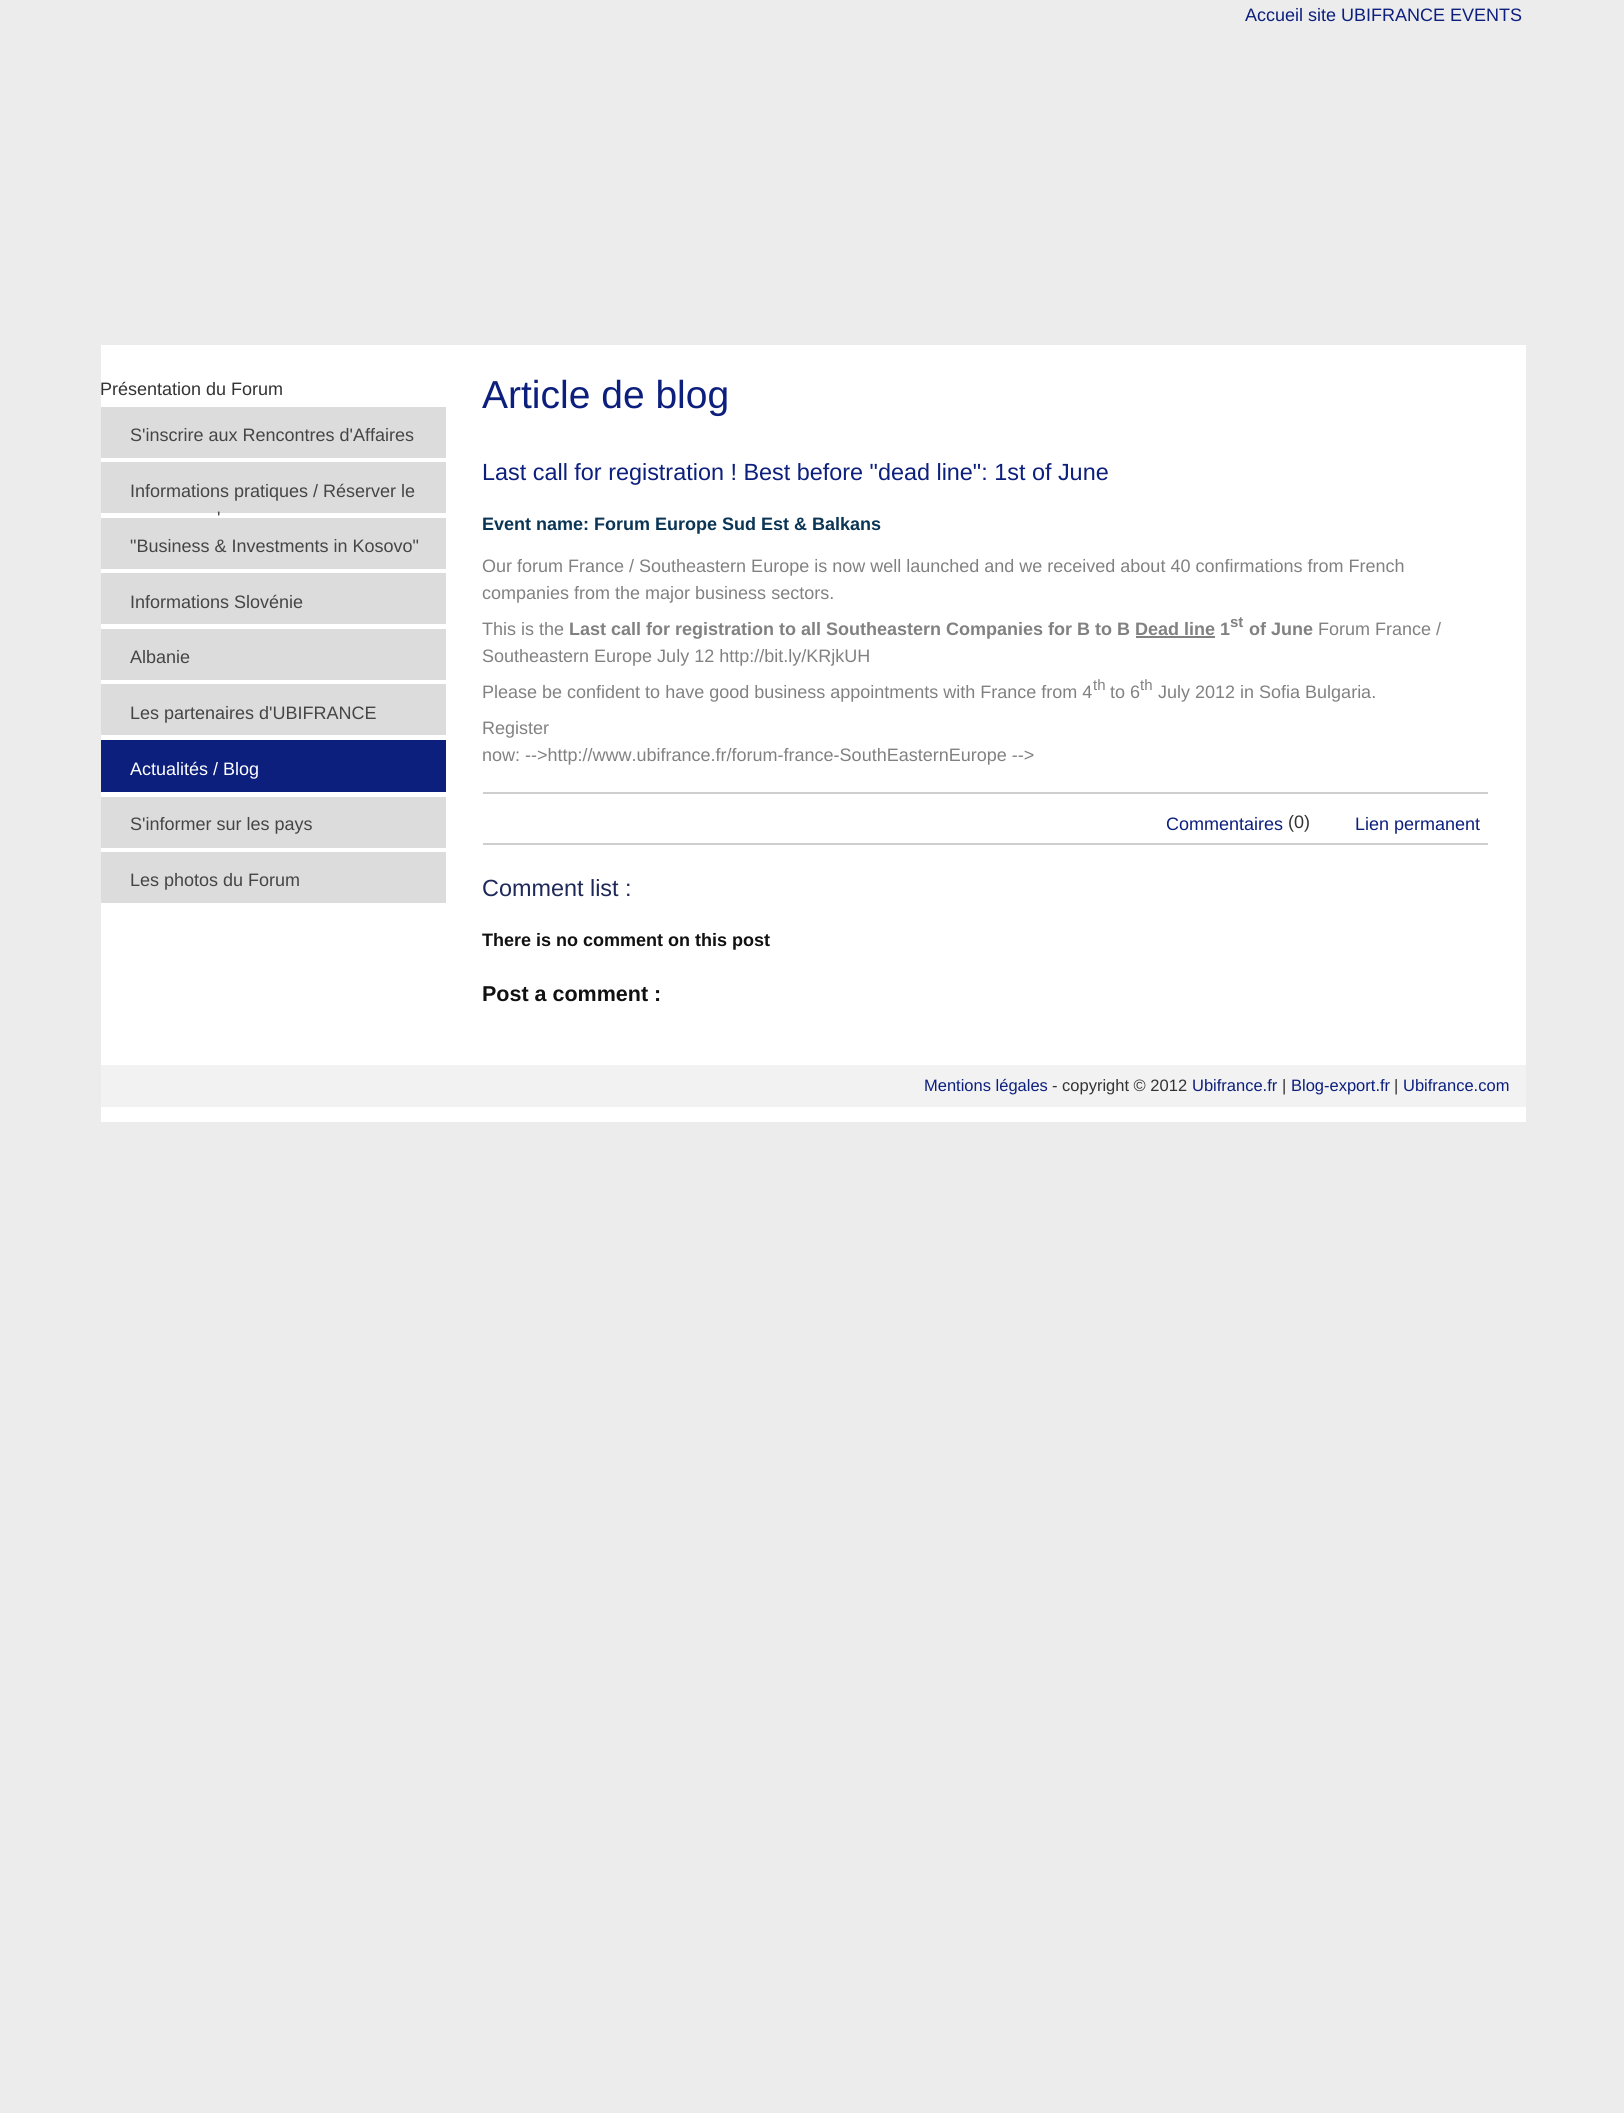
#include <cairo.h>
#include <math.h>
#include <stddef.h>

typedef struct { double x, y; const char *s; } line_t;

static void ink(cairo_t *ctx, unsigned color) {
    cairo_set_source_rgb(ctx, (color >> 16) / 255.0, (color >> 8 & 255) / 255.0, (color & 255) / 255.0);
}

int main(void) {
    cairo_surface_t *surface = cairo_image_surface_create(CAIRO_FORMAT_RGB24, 1624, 2113);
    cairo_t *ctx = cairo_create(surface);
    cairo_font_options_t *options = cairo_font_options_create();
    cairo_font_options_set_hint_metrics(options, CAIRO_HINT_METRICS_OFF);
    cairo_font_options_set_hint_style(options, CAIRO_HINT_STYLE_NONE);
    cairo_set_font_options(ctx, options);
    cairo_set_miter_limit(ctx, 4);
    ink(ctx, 0xECECEC);
    cairo_paint(ctx);
    cairo_select_font_face(ctx, "Liberation Sans", CAIRO_FONT_SLANT_NORMAL, CAIRO_FONT_WEIGHT_NORMAL);
    cairo_set_font_size(ctx, 18);
    ink(ctx, 0x0C1F7D);
    cairo_move_to(ctx, 1245, 21);
    cairo_show_text(ctx, "Accueil site UBIFRANCE EVENTS");
    ink(ctx, 0xFFFFFF);
    cairo_rectangle(ctx, 101, 345, 1425, 777);
    cairo_fill(ctx);
    ink(ctx, 0x333333);
    cairo_move_to(ctx, 100, 395);
    cairo_show_text(ctx, "Présentation du Forum");
    ink(ctx, 0xDCDCDC);
    cairo_rectangle(ctx, 101, 407, 345, 51);
    cairo_fill(ctx);
    ink(ctx, 0x454545);
    cairo_move_to(ctx, 130, 441);
    cairo_show_text(ctx, "S'inscrire aux Rencontres d'Affaires");
    ink(ctx, 0xDCDCDC);
    cairo_rectangle(ctx, 101, 462, 345, 51);
    cairo_fill(ctx);
    ink(ctx, 0x454545);
    cairo_move_to(ctx, 130, 497);
    cairo_show_text(ctx, "Informations pratiques / Réserver le");
    cairo_move_to(ctx, 217, 524);
    cairo_show_text(ctx, "'");
    ink(ctx, 0xDCDCDC);
    cairo_rectangle(ctx, 101, 518, 345, 51);
    cairo_fill(ctx);
    ink(ctx, 0x454545);
    cairo_move_to(ctx, 130, 552);
    cairo_show_text(ctx, "\"Business & Investments in Kosovo\"");
    ink(ctx, 0xDCDCDC);
    cairo_rectangle(ctx, 101, 573, 345, 51);
    cairo_fill(ctx);
    ink(ctx, 0x454545);
    cairo_move_to(ctx, 130, 608);
    cairo_show_text(ctx, "Informations Slovénie");
    ink(ctx, 0xDCDCDC);
    cairo_rectangle(ctx, 101, 629, 345, 51);
    cairo_fill(ctx);
    ink(ctx, 0x454545);
    cairo_move_to(ctx, 130, 663);
    cairo_show_text(ctx, "Albanie");
    ink(ctx, 0xDCDCDC);
    cairo_rectangle(ctx, 101, 684, 345, 51);
    cairo_fill(ctx);
    ink(ctx, 0x454545);
    cairo_move_to(ctx, 130, 719);
    cairo_show_text(ctx, "Les partenaires d'UBIFRANCE");
    ink(ctx, 0x0C1F7D);
    cairo_rectangle(ctx, 101, 740, 345, 52);
    cairo_fill(ctx);
    ink(ctx, 0xFFFFFF);
    cairo_move_to(ctx, 130, 775);
    cairo_show_text(ctx, "Actualités / Blog");
    ink(ctx, 0xDCDCDC);
    cairo_rectangle(ctx, 101, 797, 345, 51);
    cairo_fill(ctx);
    ink(ctx, 0x454545);
    cairo_move_to(ctx, 130, 830);
    cairo_show_text(ctx, "S'informer sur les pays");
    ink(ctx, 0xDCDCDC);
    cairo_rectangle(ctx, 101, 852, 345, 51);
    cairo_fill(ctx);
    ink(ctx, 0x454545);
    cairo_move_to(ctx, 130, 886);
    cairo_show_text(ctx, "Les photos du Forum");
    cairo_set_font_size(ctx, 39);
    ink(ctx, 0x0C1F7D);
    cairo_move_to(ctx, 482, 408);
    cairo_show_text(ctx, "Article de blog");
    cairo_set_font_size(ctx, 23.4);
    cairo_move_to(ctx, 482, 480);
    cairo_show_text(ctx, "Last call for registration ! Best before \"dead line\": 1st of June");
    cairo_select_font_face(ctx, "Liberation Sans", CAIRO_FONT_SLANT_NORMAL, CAIRO_FONT_WEIGHT_BOLD);
    cairo_set_font_size(ctx, 18);
    ink(ctx, 0x0A3555);
    cairo_move_to(ctx, 482, 530);
    cairo_show_text(ctx, "Event name: Forum Europe Sud Est & Balkans");
    cairo_select_font_face(ctx, "Liberation Sans", CAIRO_FONT_SLANT_NORMAL, CAIRO_FONT_WEIGHT_NORMAL);
    ink(ctx, 0x808180);
    {
        static const line_t items[] = {
            {482, 572, "Our forum France / Southeastern Europe is now well launched and we received about 40 confirmations from French"},
            {482, 599, "companies from the major business sectors."},
            {482, 635, "This is the"},
        };
        for (size_t i = 0; i < sizeof items / sizeof *items; i++) {
            cairo_move_to(ctx, items[i].x, items[i].y);
            cairo_show_text(ctx, items[i].s);
        }
    }
    cairo_select_font_face(ctx, "Liberation Sans", CAIRO_FONT_SLANT_NORMAL, CAIRO_FONT_WEIGHT_BOLD);
    cairo_move_to(ctx, 569, 635);
    cairo_show_text(ctx, "Last call for registration to all Southeastern Companies for B to B Dead line 1");
    cairo_rectangle(ctx, 1136, 636, 79, 2);
    cairo_fill(ctx);
    cairo_set_font_size(ctx, 15);
    cairo_move_to(ctx, 1230, 627);
    cairo_show_text(ctx, "st");
    cairo_set_font_size(ctx, 18);
    cairo_move_to(ctx, 1249, 635);
    cairo_show_text(ctx, "of June");
    cairo_select_font_face(ctx, "Liberation Sans", CAIRO_FONT_SLANT_NORMAL, CAIRO_FONT_WEIGHT_NORMAL);
    {
        static const line_t items[] = {
            {1318, 635, "Forum France /"},
            {482, 662, "Southeastern Europe July 12 http://bit.ly/KRjkUH"},
            {482, 698, "Please be confident to have good business appointments with France from 4"},
        };
        for (size_t i = 0; i < sizeof items / sizeof *items; i++) {
            cairo_move_to(ctx, items[i].x, items[i].y);
            cairo_show_text(ctx, items[i].s);
        }
    }
    cairo_set_font_size(ctx, 15);
    cairo_move_to(ctx, 1093, 690);
    cairo_show_text(ctx, "th");
    cairo_set_font_size(ctx, 18);
    cairo_move_to(ctx, 1110, 698);
    cairo_show_text(ctx, "to 6");
    cairo_set_font_size(ctx, 15);
    cairo_move_to(ctx, 1140, 690);
    cairo_show_text(ctx, "th");
    cairo_set_font_size(ctx, 18);
    {
        static const line_t items[] = {
            {1158, 698, "July 2012 in Sofia Bulgaria."},
            {482, 734, "Register"},
            {482, 761, "now: -->http://www.ubifrance.fr/forum-france-SouthEasternEurope -->"},
        };
        for (size_t i = 0; i < sizeof items / sizeof *items; i++) {
            cairo_move_to(ctx, items[i].x, items[i].y);
            cairo_show_text(ctx, items[i].s);
        }
    }
    ink(ctx, 0xCECECE);
    cairo_rectangle(ctx, 483, 792, 1005, 2);
    cairo_fill(ctx);
    cairo_rectangle(ctx, 483, 843, 1005, 2);
    cairo_fill(ctx);
    ink(ctx, 0x0C1F7D);
    cairo_move_to(ctx, 1166, 830);
    cairo_show_text(ctx, "Commentaires");
    ink(ctx, 0x333333);
    cairo_move_to(ctx, 1288, 828);
    cairo_show_text(ctx, "(0)");
    ink(ctx, 0x0C1F7D);
    cairo_move_to(ctx, 1355, 830);
    cairo_show_text(ctx, "Lien permanent");
    cairo_set_font_size(ctx, 23.4);
    ink(ctx, 0x1F2959);
    cairo_move_to(ctx, 482, 896);
    cairo_show_text(ctx, "Comment list :");
    cairo_select_font_face(ctx, "Liberation Sans", CAIRO_FONT_SLANT_NORMAL, CAIRO_FONT_WEIGHT_BOLD);
    cairo_set_font_size(ctx, 18);
    ink(ctx, 0x111111);
    cairo_move_to(ctx, 482, 946);
    cairo_show_text(ctx, "There is no comment on this post");
    cairo_set_font_size(ctx, 21.5);
    cairo_move_to(ctx, 482, 1001);
    cairo_show_text(ctx, "Post a comment :");
    ink(ctx, 0xF2F2F2);
    cairo_rectangle(ctx, 101, 1065, 1425, 42);
    cairo_fill(ctx);
    cairo_select_font_face(ctx, "Liberation Sans", CAIRO_FONT_SLANT_NORMAL, CAIRO_FONT_WEIGHT_NORMAL);
    cairo_set_font_size(ctx, 16.5);
    ink(ctx, 0x0C1F7D);
    cairo_move_to(ctx, 924, 1091);
    cairo_show_text(ctx, "Mentions légales");
    ink(ctx, 0x333333);
    cairo_move_to(ctx, 1052, 1091);
    cairo_show_text(ctx, "- copyright © 2012");
    ink(ctx, 0x0C1F7D);
    cairo_move_to(ctx, 1192, 1091);
    cairo_show_text(ctx, "Ubifrance.fr");
    ink(ctx, 0x333333);
    cairo_move_to(ctx, 1282, 1091);
    cairo_show_text(ctx, "|");
    ink(ctx, 0x0C1F7D);
    cairo_move_to(ctx, 1291, 1091);
    cairo_show_text(ctx, "Blog-export.fr");
    ink(ctx, 0x333333);
    cairo_move_to(ctx, 1394, 1091);
    cairo_show_text(ctx, "|");
    ink(ctx, 0x0C1F7D);
    cairo_move_to(ctx, 1403, 1091);
    cairo_show_text(ctx, "Ubifrance.com");
    cairo_surface_write_to_png(surface, "image.png");
    cairo_font_options_destroy(options);
    cairo_destroy(ctx);
    cairo_surface_destroy(surface);
    return 0;
}
